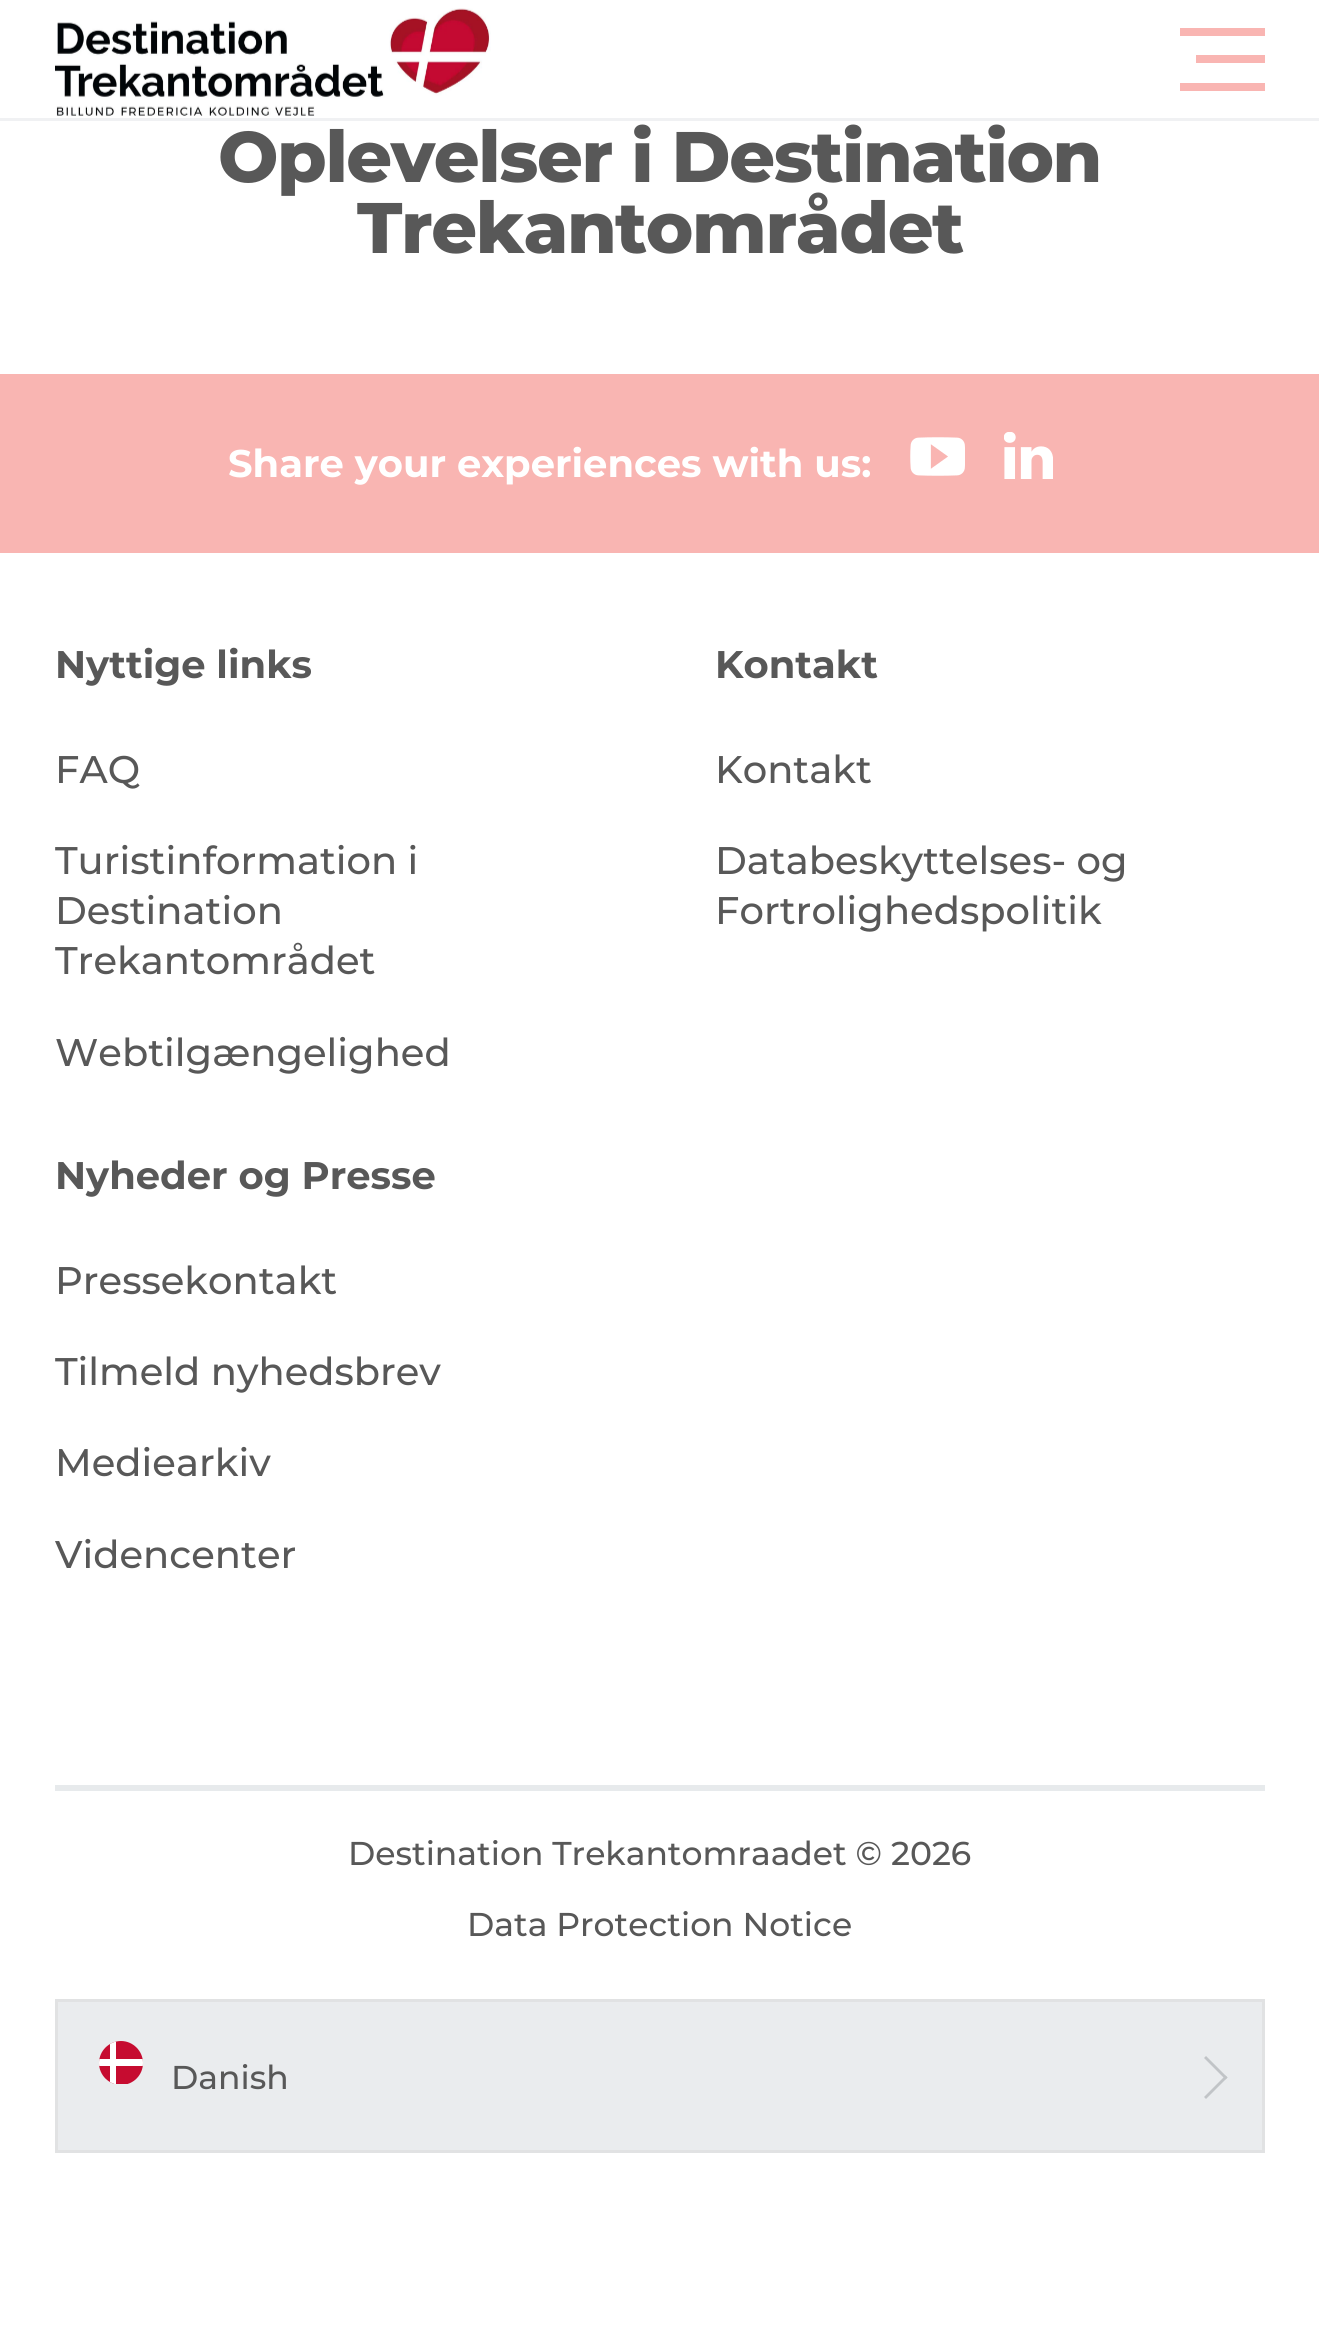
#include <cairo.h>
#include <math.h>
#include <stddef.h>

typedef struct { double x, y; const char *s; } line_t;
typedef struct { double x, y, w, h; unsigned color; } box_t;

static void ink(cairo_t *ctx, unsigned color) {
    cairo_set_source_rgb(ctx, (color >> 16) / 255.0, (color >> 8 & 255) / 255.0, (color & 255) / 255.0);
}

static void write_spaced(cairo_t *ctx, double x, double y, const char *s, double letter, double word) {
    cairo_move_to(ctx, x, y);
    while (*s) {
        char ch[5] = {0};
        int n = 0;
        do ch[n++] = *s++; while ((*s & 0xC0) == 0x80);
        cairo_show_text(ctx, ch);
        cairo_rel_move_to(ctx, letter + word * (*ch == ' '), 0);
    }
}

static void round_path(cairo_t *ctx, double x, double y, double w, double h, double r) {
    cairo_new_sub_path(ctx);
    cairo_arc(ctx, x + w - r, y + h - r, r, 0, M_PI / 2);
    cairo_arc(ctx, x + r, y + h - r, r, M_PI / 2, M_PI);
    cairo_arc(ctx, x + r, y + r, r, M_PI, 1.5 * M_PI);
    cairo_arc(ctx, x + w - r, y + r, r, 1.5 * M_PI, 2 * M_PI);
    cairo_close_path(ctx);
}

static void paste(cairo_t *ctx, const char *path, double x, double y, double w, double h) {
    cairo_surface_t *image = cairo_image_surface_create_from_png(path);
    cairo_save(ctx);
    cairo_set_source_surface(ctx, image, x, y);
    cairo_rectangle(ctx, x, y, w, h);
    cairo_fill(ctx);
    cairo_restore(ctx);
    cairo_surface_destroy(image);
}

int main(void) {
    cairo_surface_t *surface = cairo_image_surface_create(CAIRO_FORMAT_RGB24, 1319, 2336);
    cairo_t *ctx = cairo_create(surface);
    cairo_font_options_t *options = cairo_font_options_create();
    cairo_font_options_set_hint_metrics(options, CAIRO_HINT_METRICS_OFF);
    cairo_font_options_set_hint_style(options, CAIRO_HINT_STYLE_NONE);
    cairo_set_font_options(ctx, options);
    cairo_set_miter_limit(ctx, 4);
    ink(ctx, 0xFFFFFF);
    cairo_paint(ctx);
    ink(ctx, 0xF0F1F3);
    cairo_rectangle(ctx, 0, 118, 1319, 3);
    cairo_fill(ctx);
    paste(ctx, "media/1.png", 55, 8, 436, 108);
    {
        static const box_t items[] = {
            {1180, 28, 85, 8, 0xF9B5B2},
            {1196, 55, 69, 8, 0xF9B5B2},
            {1180, 83, 85, 8, 0xF9B5B2},
        };
        for (size_t i = 0; i < sizeof items / sizeof *items; i++) {
            ink(ctx, items[i].color);
            cairo_rectangle(ctx, items[i].x, items[i].y, items[i].w, items[i].h);
            cairo_fill(ctx);
        }
    }
    cairo_select_font_face(ctx, "Montserrat ExtraBold", CAIRO_FONT_SLANT_NORMAL, CAIRO_FONT_WEIGHT_NORMAL);
    cairo_set_font_size(ctx, 71.5);
    ink(ctx, 0x585858);
    write_spaced(ctx, 218, 182, "Oplevelser i Destination", -1.4, 0);
    write_spaced(ctx, 357, 253, "Trekantområdet", -1.4, 0);
    ink(ctx, 0xF9B5B2);
    cairo_rectangle(ctx, 0, 374, 1319, 179);
    cairo_fill(ctx);
    cairo_select_font_face(ctx, "Montserrat", CAIRO_FONT_SLANT_NORMAL, CAIRO_FONT_WEIGHT_BOLD);
    cairo_set_font_size(ctx, 38.5);
    ink(ctx, 0xFFFFFF);
    cairo_move_to(ctx, 228, 477);
    cairo_show_text(ctx, "Share your experiences with us:");
    paste(ctx, "media/2.png", 910, 437, 55, 39);
    paste(ctx, "media/3.png", 1004, 432, 49, 47);
    ink(ctx, 0x585858);
    cairo_move_to(ctx, 55, 678);
    cairo_show_text(ctx, "Nyttige links");
    cairo_select_font_face(ctx, "Montserrat Medium", CAIRO_FONT_SLANT_NORMAL, CAIRO_FONT_WEIGHT_NORMAL);
    {
        static const line_t items[] = {
            {55, 783, "FAQ"},
            {55, 874, "Turistinformation i"},
            {55, 924, "Destination"},
            {55, 974, "Trekantområdet"},
            {55, 1066, "Webtilgængelighed"},
        };
        for (size_t i = 0; i < sizeof items / sizeof *items; i++) {
            cairo_move_to(ctx, items[i].x, items[i].y);
            cairo_show_text(ctx, items[i].s);
        }
    }
    cairo_select_font_face(ctx, "Montserrat", CAIRO_FONT_SLANT_NORMAL, CAIRO_FONT_WEIGHT_BOLD);
    cairo_move_to(ctx, 715, 678);
    cairo_show_text(ctx, "Kontakt");
    cairo_select_font_face(ctx, "Montserrat Medium", CAIRO_FONT_SLANT_NORMAL, CAIRO_FONT_WEIGHT_NORMAL);
    {
        static const line_t items[] = {
            {715, 783, "Kontakt"},
            {715, 874, "Databeskyttelses- og"},
            {715, 924, "Fortrolighedspolitik"},
        };
        for (size_t i = 0; i < sizeof items / sizeof *items; i++) {
            cairo_move_to(ctx, items[i].x, items[i].y);
            cairo_show_text(ctx, items[i].s);
        }
    }
    cairo_select_font_face(ctx, "Montserrat", CAIRO_FONT_SLANT_NORMAL, CAIRO_FONT_WEIGHT_BOLD);
    cairo_move_to(ctx, 55, 1189);
    cairo_show_text(ctx, "Nyheder og Presse");
    cairo_select_font_face(ctx, "Montserrat Medium", CAIRO_FONT_SLANT_NORMAL, CAIRO_FONT_WEIGHT_NORMAL);
    {
        static const line_t items[] = {
            {55, 1294, "Pressekontakt"},
            {55, 1385, "Tilmeld nyhedsbrev"},
            {55, 1476, "Mediearkiv"},
            {55, 1568, "Videncenter"},
        };
        for (size_t i = 0; i < sizeof items / sizeof *items; i++) {
            cairo_move_to(ctx, items[i].x, items[i].y);
            cairo_show_text(ctx, items[i].s);
        }
    }
    ink(ctx, 0xE7EAEC);
    cairo_rectangle(ctx, 55, 1785, 1210, 6);
    cairo_fill(ctx);
    cairo_set_font_size(ctx, 33);
    ink(ctx, 0x585858);
    cairo_move_to(ctx, 348, 1865);
    cairo_show_text(ctx, "Destination Trekantomraadet © 2026");
    cairo_move_to(ctx, 467, 1936);
    cairo_show_text(ctx, "Data Protection Notice");
    ink(ctx, 0xEAECEE);
    cairo_rectangle(ctx, 56.5, 2000.5, 1207, 151);
    cairo_fill_preserve(ctx);
    ink(ctx, 0xE1E2E3);
    cairo_set_line_width(ctx, 3);
    cairo_stroke(ctx);
    cairo_save(ctx);
    round_path(ctx, 99, 2041, 44, 44, 22);
    cairo_clip(ctx);
    ink(ctx, 0xC60C30);
    cairo_new_path(ctx);
    cairo_move_to(ctx, 121, 2041);
    cairo_curve_to(ctx, 133, 2041, 143, 2051, 143, 2063);
    cairo_line_to(ctx, 143, 2084);
    cairo_line_to(ctx, 99, 2084);
    cairo_line_to(ctx, 99, 2063);
    cairo_curve_to(ctx, 99, 2051, 109, 2041, 121, 2041);
    cairo_close_path(ctx);
    cairo_fill(ctx);
    ink(ctx, 0xFFFFFF);
    cairo_rectangle(ctx, 110, 2041, 6, 43);
    cairo_fill(ctx);
    cairo_rectangle(ctx, 99, 2059, 44, 7);
    cairo_fill(ctx);
    cairo_restore(ctx);
    ink(ctx, 0x585858);
    cairo_move_to(ctx, 171, 2089);
    cairo_show_text(ctx, "Danish");
    ink(ctx, 0xC1C4C7);
    cairo_new_path(ctx);
    cairo_move_to(ctx, 1206, 2056);
    cairo_line_to(ctx, 1227.5, 2077.5);
    cairo_line_to(ctx, 1225.5, 2079.5);
    cairo_line_to(ctx, 1204, 2058);
    cairo_close_path(ctx);
    cairo_fill(ctx);
    cairo_new_path(ctx);
    cairo_move_to(ctx, 1225.5, 2075.5);
    cairo_line_to(ctx, 1227.5, 2077.5);
    cairo_line_to(ctx, 1206, 2099);
    cairo_line_to(ctx, 1204, 2097);
    cairo_close_path(ctx);
    cairo_fill(ctx);
    cairo_surface_write_to_png(surface, "image.png");
    cairo_font_options_destroy(options);
    cairo_destroy(ctx);
    cairo_surface_destroy(surface);
    return 0;
}
